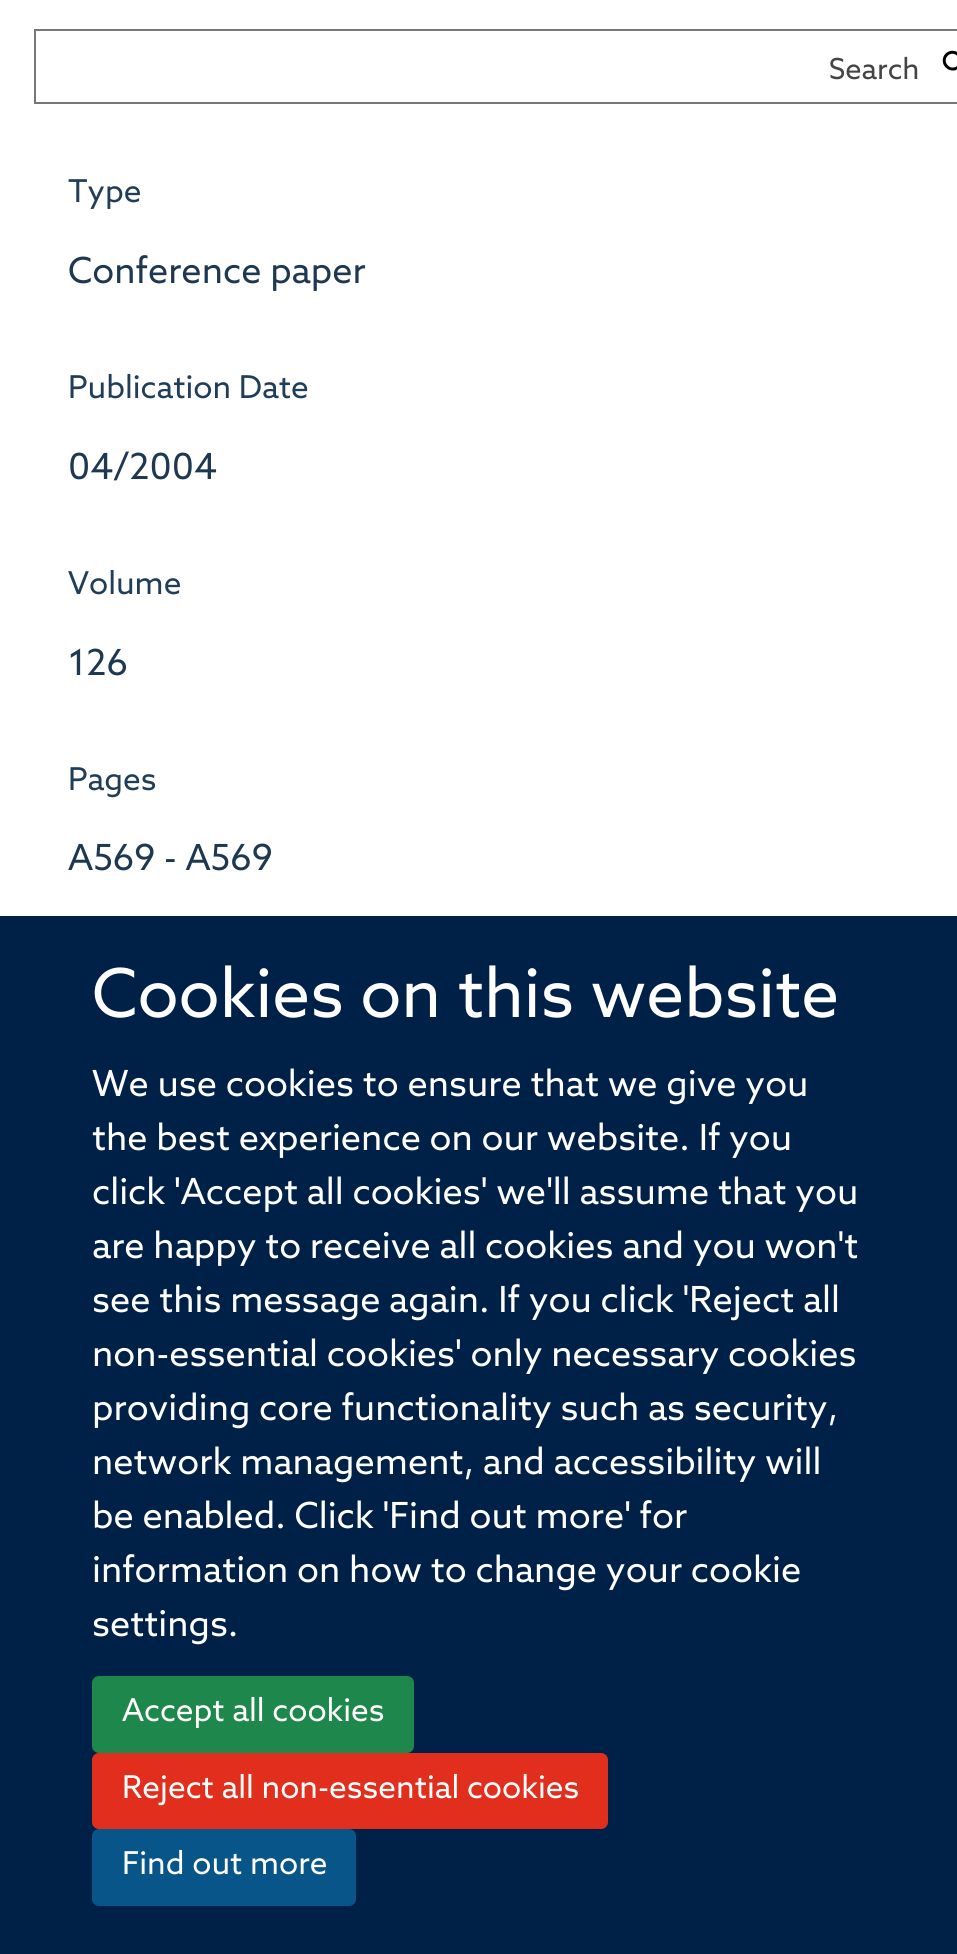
#include <cairo.h>
#include <math.h>
#include <stddef.h>

typedef struct { double x, y; const char *s; } line_t;

static void ink(cairo_t *ctx, unsigned color) {
    cairo_set_source_rgb(ctx, (color >> 16) / 255.0, (color >> 8 & 255) / 255.0, (color & 255) / 255.0);
}

static void round_path(cairo_t *ctx, double x, double y, double w, double h, double r) {
    cairo_new_sub_path(ctx);
    cairo_arc(ctx, x + w - r, y + h - r, r, 0, M_PI / 2);
    cairo_arc(ctx, x + r, y + h - r, r, M_PI / 2, M_PI);
    cairo_arc(ctx, x + r, y + r, r, M_PI, 1.5 * M_PI);
    cairo_arc(ctx, x + w - r, y + r, r, 1.5 * M_PI, 2 * M_PI);
    cairo_close_path(ctx);
}

static void paste(cairo_t *ctx, const char *path, double x, double y, double w, double h) {
    cairo_surface_t *image = cairo_image_surface_create_from_png(path);
    cairo_save(ctx);
    cairo_set_source_surface(ctx, image, x, y);
    cairo_rectangle(ctx, x, y, w, h);
    cairo_fill(ctx);
    cairo_restore(ctx);
    cairo_surface_destroy(image);
}

int main(void) {
    cairo_surface_t *surface = cairo_image_surface_create(CAIRO_FORMAT_RGB24, 957, 1954);
    cairo_t *ctx = cairo_create(surface);
    cairo_font_options_t *options = cairo_font_options_create();
    cairo_font_options_set_hint_metrics(options, CAIRO_HINT_METRICS_OFF);
    cairo_font_options_set_hint_style(options, CAIRO_HINT_STYLE_NONE);
    cairo_set_font_options(ctx, options);
    cairo_set_miter_limit(ctx, 4);
    ink(ctx, 0xFFFFFF);
    cairo_paint(ctx);
    cairo_rectangle(ctx, 35, 30, 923, 73);
    ink(ctx, 0x777777);
    cairo_stroke(ctx);
    cairo_select_font_face(ctx, "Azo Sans", CAIRO_FONT_SLANT_NORMAL, CAIRO_FONT_WEIGHT_NORMAL);
    cairo_set_font_size(ctx, 29);
    ink(ctx, 0x444444);
    cairo_move_to(ctx, 829, 79);
    cairo_show_text(ctx, "Search");
    paste(ctx, "media/1.png", 942, 50, 15, 21);
    cairo_set_font_size(ctx, 31.5);
    ink(ctx, 0x203E58);
    cairo_move_to(ctx, 68, 202);
    cairo_show_text(ctx, "Type");
    cairo_set_font_size(ctx, 36);
    ink(ctx, 0x1D3850);
    cairo_move_to(ctx, 68, 283);
    cairo_show_text(ctx, "Conference paper");
    cairo_set_font_size(ctx, 31.5);
    ink(ctx, 0x203E58);
    cairo_move_to(ctx, 68, 398);
    cairo_show_text(ctx, "Publication Date");
    cairo_set_font_size(ctx, 36);
    ink(ctx, 0x1D3850);
    cairo_move_to(ctx, 68, 479);
    cairo_show_text(ctx, "04/2004");
    cairo_set_font_size(ctx, 31.5);
    ink(ctx, 0x203E58);
    cairo_move_to(ctx, 68, 594);
    cairo_show_text(ctx, "Volume");
    cairo_set_font_size(ctx, 36);
    ink(ctx, 0x1D3850);
    cairo_move_to(ctx, 68, 675);
    cairo_show_text(ctx, "126");
    cairo_set_font_size(ctx, 31.5);
    ink(ctx, 0x203E58);
    cairo_move_to(ctx, 68, 790);
    cairo_show_text(ctx, "Pages");
    cairo_set_font_size(ctx, 36);
    ink(ctx, 0x1D3850);
    cairo_move_to(ctx, 68, 870);
    cairo_show_text(ctx, "A569 - A569");
    ink(ctx, 0x002147);
    cairo_rectangle(ctx, 0, 916, 957, 1038);
    cairo_fill(ctx);
    cairo_set_font_size(ctx, 67.5);
    ink(ctx, 0xFFFFFF);
    cairo_move_to(ctx, 92, 1017);
    cairo_show_text(ctx, "Cookies on this website");
    cairo_set_font_size(ctx, 36);
    {
        static const line_t items[] = {
            {92, 1096, "We use cookies to ensure that we give you"},
            {92, 1150, "the best experience on our website. If you"},
            {92, 1204, "click 'Accept all cookies' we'll assume that you"},
            {92, 1258, "are happy to receive all cookies and you won't"},
            {92, 1312, "see this message again. If you click 'Reject all"},
            {92, 1366, "non-essential cookies' only necessary cookies"},
            {92, 1420, "providing core functionality such as security,"},
            {92, 1474, "network management, and accessibility will"},
            {92, 1528, "be enabled. Click 'Find out more' for"},
            {92, 1582, "information on how to change your cookie"},
            {92, 1636, "settings."},
        };
        for (size_t i = 0; i < sizeof items / sizeof *items; i++) {
            cairo_move_to(ctx, items[i].x, items[i].y);
            cairo_show_text(ctx, items[i].s);
        }
    }
    ink(ctx, 0x1E874B);
    round_path(ctx, 93, 1677, 320, 75, 6);
    cairo_fill_preserve(ctx);
    cairo_stroke(ctx);
    cairo_set_font_size(ctx, 31.5);
    ink(ctx, 0xFFFFFF);
    cairo_move_to(ctx, 122, 1721);
    cairo_show_text(ctx, "Accept all cookies");
    ink(ctx, 0xE22E1C);
    round_path(ctx, 93, 1754, 514, 74, 6);
    cairo_fill_preserve(ctx);
    cairo_stroke(ctx);
    ink(ctx, 0xFFFFFF);
    cairo_move_to(ctx, 122, 1798);
    cairo_show_text(ctx, "Reject all non-essential cookies");
    ink(ctx, 0x085589);
    round_path(ctx, 93, 1830, 262, 75, 6);
    cairo_fill_preserve(ctx);
    cairo_stroke(ctx);
    ink(ctx, 0xFFFFFF);
    cairo_move_to(ctx, 122, 1874);
    cairo_show_text(ctx, "Find out more");
    cairo_surface_write_to_png(surface, "image.png");
    cairo_font_options_destroy(options);
    cairo_destroy(ctx);
    cairo_surface_destroy(surface);
    return 0;
}
